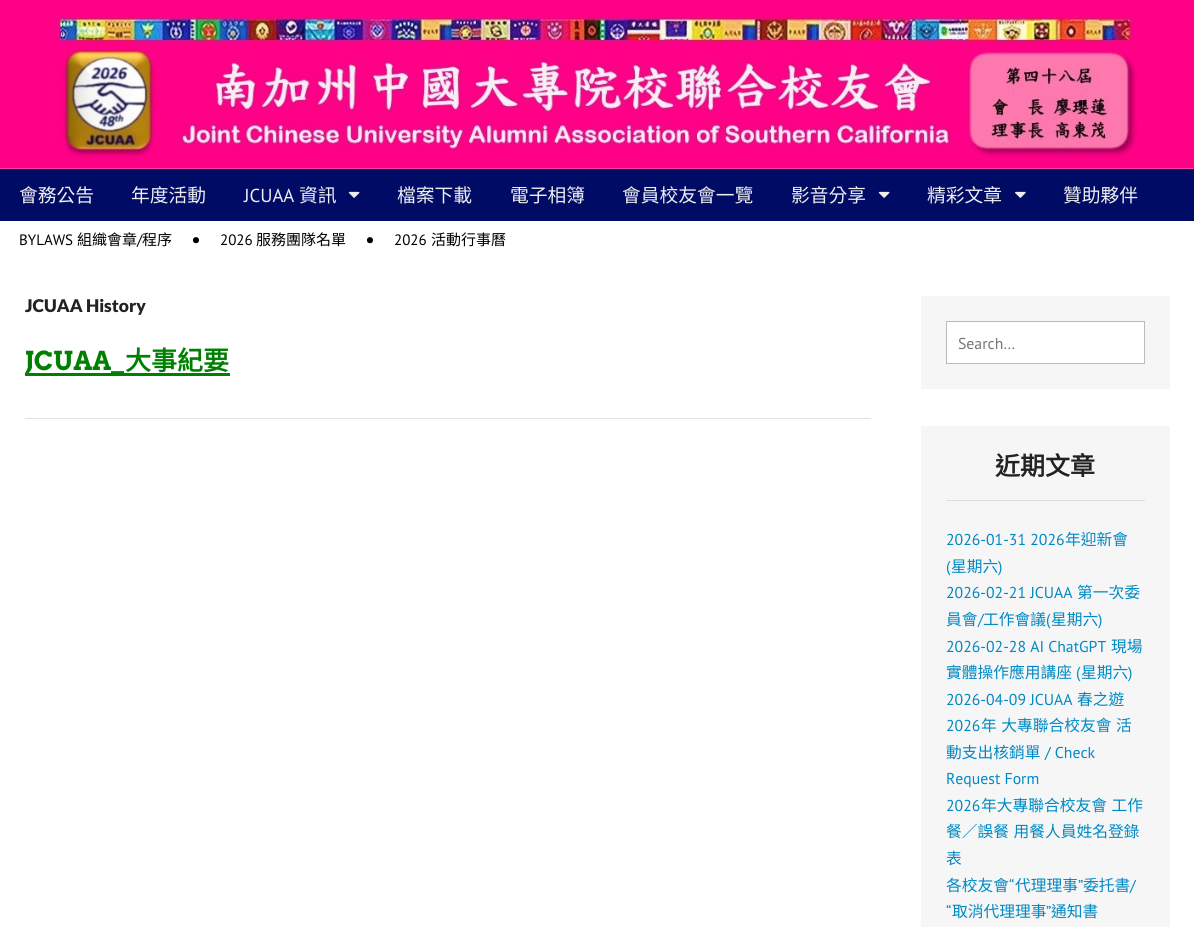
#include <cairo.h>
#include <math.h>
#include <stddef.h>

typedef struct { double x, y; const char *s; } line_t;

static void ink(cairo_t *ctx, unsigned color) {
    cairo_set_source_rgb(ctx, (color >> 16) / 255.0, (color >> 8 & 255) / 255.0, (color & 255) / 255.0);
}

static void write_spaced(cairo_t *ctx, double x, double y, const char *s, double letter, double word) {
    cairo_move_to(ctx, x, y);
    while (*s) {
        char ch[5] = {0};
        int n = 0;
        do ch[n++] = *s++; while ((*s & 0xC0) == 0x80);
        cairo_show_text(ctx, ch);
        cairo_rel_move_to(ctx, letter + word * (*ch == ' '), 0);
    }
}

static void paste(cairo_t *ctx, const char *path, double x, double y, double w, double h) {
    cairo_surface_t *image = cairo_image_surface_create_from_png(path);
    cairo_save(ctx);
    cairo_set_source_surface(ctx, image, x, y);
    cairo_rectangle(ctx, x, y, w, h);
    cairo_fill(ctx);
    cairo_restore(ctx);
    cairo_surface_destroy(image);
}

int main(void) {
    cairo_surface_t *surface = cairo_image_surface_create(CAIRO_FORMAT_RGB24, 1194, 927);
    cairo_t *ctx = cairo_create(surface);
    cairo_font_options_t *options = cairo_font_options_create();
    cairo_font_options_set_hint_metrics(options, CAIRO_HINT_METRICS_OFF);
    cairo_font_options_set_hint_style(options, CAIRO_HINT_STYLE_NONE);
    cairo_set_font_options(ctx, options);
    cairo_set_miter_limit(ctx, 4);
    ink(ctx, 0xFFFFFF);
    cairo_paint(ctx);
    paste(ctx, "media/1.png", 0, 0, 1194, 169);
    ink(ctx, 0x000B66);
    cairo_rectangle(ctx, 0, 169, 1194, 52);
    cairo_fill(ctx);
    cairo_select_font_face(ctx, "Noto Sans CJK TC", CAIRO_FONT_SLANT_NORMAL, CAIRO_FONT_WEIGHT_NORMAL);
    cairo_set_font_size(ctx, 18.75);
    ink(ctx, 0xEEEEEE);
    cairo_move_to(ctx, 19, 202);
    cairo_show_text(ctx, "會務公告");
    cairo_move_to(ctx, 131, 202);
    cairo_show_text(ctx, "年度活動");
    cairo_select_font_face(ctx, "PT Sans", CAIRO_FONT_SLANT_NORMAL, CAIRO_FONT_WEIGHT_NORMAL);
    cairo_move_to(ctx, 244, 202);
    cairo_show_text(ctx, "JCUAA");
    cairo_select_font_face(ctx, "Noto Sans CJK TC", CAIRO_FONT_SLANT_NORMAL, CAIRO_FONT_WEIGHT_NORMAL);
    cairo_move_to(ctx, 299, 202);
    cairo_show_text(ctx, "資訊");
    paste(ctx, "media/2.png", 348, 191, 12, 7);
    {
        static const line_t items[] = {
            {397, 202, "檔案下載"},
            {510, 202, "電子相簿"},
            {622, 202, "會員校友會一覽"},
            {791, 202, "影音分享"},
        };
        for (size_t i = 0; i < sizeof items / sizeof *items; i++) {
            cairo_move_to(ctx, items[i].x, items[i].y);
            cairo_show_text(ctx, items[i].s);
        }
    }
    paste(ctx, "media/2.png", 878, 191, 12, 7);
    cairo_move_to(ctx, 927, 202);
    cairo_show_text(ctx, "精彩文章");
    paste(ctx, "media/3.png", 1015, 191, 11, 7);
    cairo_move_to(ctx, 1063, 202);
    cairo_show_text(ctx, "贊助夥伴");
    cairo_select_font_face(ctx, "PT Sans", CAIRO_FONT_SLANT_NORMAL, CAIRO_FONT_WEIGHT_NORMAL);
    cairo_set_font_size(ctx, 15);
    ink(ctx, 0x000000);
    cairo_move_to(ctx, 19, 245);
    cairo_show_text(ctx, "BYLAWS");
    cairo_select_font_face(ctx, "Noto Sans CJK TC", CAIRO_FONT_SLANT_NORMAL, CAIRO_FONT_WEIGHT_NORMAL);
    cairo_move_to(ctx, 77, 245);
    cairo_show_text(ctx, "組織會章");
    cairo_select_font_face(ctx, "PT Sans", CAIRO_FONT_SLANT_NORMAL, CAIRO_FONT_WEIGHT_NORMAL);
    cairo_move_to(ctx, 137, 245);
    cairo_show_text(ctx, "/");
    cairo_select_font_face(ctx, "Noto Sans CJK TC", CAIRO_FONT_SLANT_NORMAL, CAIRO_FONT_WEIGHT_NORMAL);
    cairo_move_to(ctx, 142, 245);
    cairo_show_text(ctx, "程序");
    cairo_select_font_face(ctx, "PT Sans", CAIRO_FONT_SLANT_NORMAL, CAIRO_FONT_WEIGHT_NORMAL);
    cairo_set_font_size(ctx, 22);
    cairo_move_to(ctx, 191, 247);
    cairo_show_text(ctx, "•");
    cairo_set_font_size(ctx, 15);
    cairo_move_to(ctx, 220, 245);
    cairo_show_text(ctx, "2026");
    cairo_select_font_face(ctx, "Noto Sans CJK TC", CAIRO_FONT_SLANT_NORMAL, CAIRO_FONT_WEIGHT_NORMAL);
    cairo_move_to(ctx, 256, 245);
    cairo_show_text(ctx, "服務團隊名單");
    cairo_select_font_face(ctx, "PT Sans", CAIRO_FONT_SLANT_NORMAL, CAIRO_FONT_WEIGHT_NORMAL);
    cairo_set_font_size(ctx, 22);
    cairo_move_to(ctx, 365, 247);
    cairo_show_text(ctx, "•");
    cairo_set_font_size(ctx, 15);
    cairo_move_to(ctx, 394, 245);
    cairo_show_text(ctx, "2026");
    cairo_select_font_face(ctx, "Noto Sans CJK TC", CAIRO_FONT_SLANT_NORMAL, CAIRO_FONT_WEIGHT_NORMAL);
    cairo_move_to(ctx, 431, 245);
    cairo_show_text(ctx, "活動行事曆");
    ink(ctx, 0xE2E2E2);
    cairo_rectangle(ctx, 25, 418, 846, 1);
    cairo_fill(ctx);
    cairo_select_font_face(ctx, "Lato Black", CAIRO_FONT_SLANT_NORMAL, CAIRO_FONT_WEIGHT_NORMAL);
    cairo_set_font_size(ctx, 17.5);
    ink(ctx, 0x222222);
    cairo_move_to(ctx, 25, 312);
    cairo_show_text(ctx, "JCUAA History");
    ink(ctx, 0x008000);
    cairo_rectangle(ctx, 25, 373, 205, 3);
    cairo_fill(ctx);
    cairo_select_font_face(ctx, "Arvo", CAIRO_FONT_SLANT_NORMAL, CAIRO_FONT_WEIGHT_BOLD);
    cairo_set_font_size(ctx, 26);
    cairo_move_to(ctx, 25, 370);
    cairo_show_text(ctx, "JCUAA_");
    cairo_select_font_face(ctx, "Noto Sans CJK TC", CAIRO_FONT_SLANT_NORMAL, CAIRO_FONT_WEIGHT_BOLD);
    cairo_move_to(ctx, 125, 370);
    cairo_show_text(ctx, "大事紀要");
    ink(ctx, 0xF6F6F6);
    cairo_rectangle(ctx, 921, 296, 249, 93);
    cairo_fill(ctx);
    ink(ctx, 0xFFFFFF);
    cairo_rectangle(ctx, 946.5, 321.5, 198, 42);
    cairo_fill_preserve(ctx);
    ink(ctx, 0xBBBBBB);
    cairo_set_line_width(ctx, 1);
    cairo_stroke(ctx);
    cairo_select_font_face(ctx, "PT Sans", CAIRO_FONT_SLANT_NORMAL, CAIRO_FONT_WEIGHT_NORMAL);
    cairo_set_font_size(ctx, 15.75);
    ink(ctx, 0x757575);
    cairo_move_to(ctx, 958, 349);
    cairo_show_text(ctx, "Search…");
    ink(ctx, 0xF6F6F6);
    cairo_rectangle(ctx, 921, 426, 249, 501);
    cairo_fill(ctx);
    ink(ctx, 0xDDDDDD);
    cairo_rectangle(ctx, 946, 500, 199, 1);
    cairo_fill(ctx);
    cairo_select_font_face(ctx, "Noto Sans CJK TC", CAIRO_FONT_SLANT_NORMAL, CAIRO_FONT_WEIGHT_BOLD);
    cairo_set_font_size(ctx, 25);
    ink(ctx, 0x222222);
    cairo_move_to(ctx, 995, 475);
    cairo_show_text(ctx, "近期文章");
    cairo_select_font_face(ctx, "PT Sans", CAIRO_FONT_SLANT_NORMAL, CAIRO_FONT_WEIGHT_NORMAL);
    cairo_set_font_size(ctx, 15.75);
    ink(ctx, 0x0089C4);
    cairo_move_to(ctx, 946, 545);
    cairo_show_text(ctx, "2026-01-31 2026");
    cairo_select_font_face(ctx, "Noto Sans CJK TC", CAIRO_FONT_SLANT_NORMAL, CAIRO_FONT_WEIGHT_NORMAL);
    cairo_move_to(ctx, 1065, 545);
    cairo_show_text(ctx, "年迎新會");
    cairo_select_font_face(ctx, "PT Sans", CAIRO_FONT_SLANT_NORMAL, CAIRO_FONT_WEIGHT_NORMAL);
    cairo_move_to(ctx, 946, 572);
    cairo_show_text(ctx, "(");
    cairo_select_font_face(ctx, "Noto Sans CJK TC", CAIRO_FONT_SLANT_NORMAL, CAIRO_FONT_WEIGHT_NORMAL);
    cairo_move_to(ctx, 951, 572);
    cairo_show_text(ctx, "星期六");
    cairo_select_font_face(ctx, "PT Sans", CAIRO_FONT_SLANT_NORMAL, CAIRO_FONT_WEIGHT_NORMAL);
    cairo_move_to(ctx, 998, 572);
    cairo_show_text(ctx, ")");
    cairo_move_to(ctx, 946, 598);
    cairo_show_text(ctx, "2026-02-21 JCUAA");
    cairo_select_font_face(ctx, "Noto Sans CJK TC", CAIRO_FONT_SLANT_NORMAL, CAIRO_FONT_WEIGHT_NORMAL);
    cairo_move_to(ctx, 1077, 598);
    cairo_show_text(ctx, "第一次委");
    cairo_move_to(ctx, 946, 625);
    cairo_show_text(ctx, "員會");
    cairo_select_font_face(ctx, "PT Sans", CAIRO_FONT_SLANT_NORMAL, CAIRO_FONT_WEIGHT_NORMAL);
    cairo_move_to(ctx, 978, 625);
    cairo_show_text(ctx, "/");
    cairo_select_font_face(ctx, "Noto Sans CJK TC", CAIRO_FONT_SLANT_NORMAL, CAIRO_FONT_WEIGHT_NORMAL);
    cairo_move_to(ctx, 983, 625);
    cairo_show_text(ctx, "工作會議");
    cairo_select_font_face(ctx, "PT Sans", CAIRO_FONT_SLANT_NORMAL, CAIRO_FONT_WEIGHT_NORMAL);
    cairo_move_to(ctx, 1046, 625);
    cairo_show_text(ctx, "(");
    cairo_select_font_face(ctx, "Noto Sans CJK TC", CAIRO_FONT_SLANT_NORMAL, CAIRO_FONT_WEIGHT_NORMAL);
    cairo_move_to(ctx, 1051, 625);
    cairo_show_text(ctx, "星期六");
    cairo_select_font_face(ctx, "PT Sans", CAIRO_FONT_SLANT_NORMAL, CAIRO_FONT_WEIGHT_NORMAL);
    cairo_move_to(ctx, 1098, 625);
    cairo_show_text(ctx, ")");
    cairo_move_to(ctx, 946, 652);
    cairo_show_text(ctx, "2026-02-28 AI ChatGPT");
    cairo_select_font_face(ctx, "Noto Sans CJK TC", CAIRO_FONT_SLANT_NORMAL, CAIRO_FONT_WEIGHT_NORMAL);
    cairo_move_to(ctx, 1111, 652);
    cairo_show_text(ctx, "現場");
    cairo_move_to(ctx, 946, 678);
    cairo_show_text(ctx, "實體操作應用講座");
    cairo_select_font_face(ctx, "PT Sans", CAIRO_FONT_SLANT_NORMAL, CAIRO_FONT_WEIGHT_NORMAL);
    cairo_move_to(ctx, 1076, 678);
    cairo_show_text(ctx, "(");
    cairo_select_font_face(ctx, "Noto Sans CJK TC", CAIRO_FONT_SLANT_NORMAL, CAIRO_FONT_WEIGHT_NORMAL);
    cairo_move_to(ctx, 1081, 678);
    cairo_show_text(ctx, "星期六");
    cairo_select_font_face(ctx, "PT Sans", CAIRO_FONT_SLANT_NORMAL, CAIRO_FONT_WEIGHT_NORMAL);
    cairo_move_to(ctx, 1128, 678);
    cairo_show_text(ctx, ")");
    cairo_move_to(ctx, 946, 705);
    cairo_show_text(ctx, "2026-04-09 JCUAA");
    cairo_select_font_face(ctx, "Noto Sans CJK TC", CAIRO_FONT_SLANT_NORMAL, CAIRO_FONT_WEIGHT_NORMAL);
    cairo_move_to(ctx, 1077, 705);
    cairo_show_text(ctx, "春之遊");
    cairo_select_font_face(ctx, "PT Sans", CAIRO_FONT_SLANT_NORMAL, CAIRO_FONT_WEIGHT_NORMAL);
    cairo_move_to(ctx, 946, 731);
    cairo_show_text(ctx, "2026");
    cairo_select_font_face(ctx, "Noto Sans CJK TC", CAIRO_FONT_SLANT_NORMAL, CAIRO_FONT_WEIGHT_NORMAL);
    write_spaced(ctx, 981, 731, "年 大專聯合校友會 活", 0, 1);
    cairo_move_to(ctx, 946, 758);
    cairo_show_text(ctx, "動支出核銷單");
    cairo_select_font_face(ctx, "PT Sans", CAIRO_FONT_SLANT_NORMAL, CAIRO_FONT_WEIGHT_NORMAL);
    {
        static const line_t items[] = {
            {1045, 758, "/ Check"},
            {946, 784, "Request Form"},
            {946, 811, "2026"},
        };
        for (size_t i = 0; i < sizeof items / sizeof *items; i++) {
            cairo_move_to(ctx, items[i].x, items[i].y);
            cairo_show_text(ctx, items[i].s);
        }
    }
    cairo_select_font_face(ctx, "Noto Sans CJK TC", CAIRO_FONT_SLANT_NORMAL, CAIRO_FONT_WEIGHT_NORMAL);
    write_spaced(ctx, 981, 811, "年大專聯合校友會 工作", 0, 1);
    write_spaced(ctx, 946, 837, "餐／誤餐 用餐人員姓名登錄", 0, 1);
    cairo_move_to(ctx, 946, 864);
    cairo_show_text(ctx, "表");
    cairo_move_to(ctx, 946, 891);
    cairo_show_text(ctx, "各校友會");
    cairo_select_font_face(ctx, "PT Sans", CAIRO_FONT_SLANT_NORMAL, CAIRO_FONT_WEIGHT_NORMAL);
    cairo_move_to(ctx, 1009, 891);
    cairo_show_text(ctx, "“");
    cairo_select_font_face(ctx, "Noto Sans CJK TC", CAIRO_FONT_SLANT_NORMAL, CAIRO_FONT_WEIGHT_NORMAL);
    cairo_move_to(ctx, 1015, 891);
    cairo_show_text(ctx, "代理理事");
    cairo_select_font_face(ctx, "PT Sans", CAIRO_FONT_SLANT_NORMAL, CAIRO_FONT_WEIGHT_NORMAL);
    cairo_move_to(ctx, 1078, 891);
    cairo_show_text(ctx, "”");
    cairo_select_font_face(ctx, "Noto Sans CJK TC", CAIRO_FONT_SLANT_NORMAL, CAIRO_FONT_WEIGHT_NORMAL);
    cairo_move_to(ctx, 1083, 891);
    cairo_show_text(ctx, "委托書");
    cairo_select_font_face(ctx, "PT Sans", CAIRO_FONT_SLANT_NORMAL, CAIRO_FONT_WEIGHT_NORMAL);
    cairo_move_to(ctx, 1130, 891);
    cairo_show_text(ctx, "/");
    cairo_move_to(ctx, 946, 917);
    cairo_show_text(ctx, "“");
    cairo_select_font_face(ctx, "Noto Sans CJK TC", CAIRO_FONT_SLANT_NORMAL, CAIRO_FONT_WEIGHT_NORMAL);
    cairo_move_to(ctx, 952, 917);
    cairo_show_text(ctx, "取消代理理事");
    cairo_select_font_face(ctx, "PT Sans", CAIRO_FONT_SLANT_NORMAL, CAIRO_FONT_WEIGHT_NORMAL);
    cairo_move_to(ctx, 1046, 917);
    cairo_show_text(ctx, "”");
    cairo_select_font_face(ctx, "Noto Sans CJK TC", CAIRO_FONT_SLANT_NORMAL, CAIRO_FONT_WEIGHT_NORMAL);
    cairo_move_to(ctx, 1051, 917);
    cairo_show_text(ctx, "通知書");
    cairo_surface_write_to_png(surface, "image.png");
    cairo_font_options_destroy(options);
    cairo_destroy(ctx);
    cairo_surface_destroy(surface);
    return 0;
}
